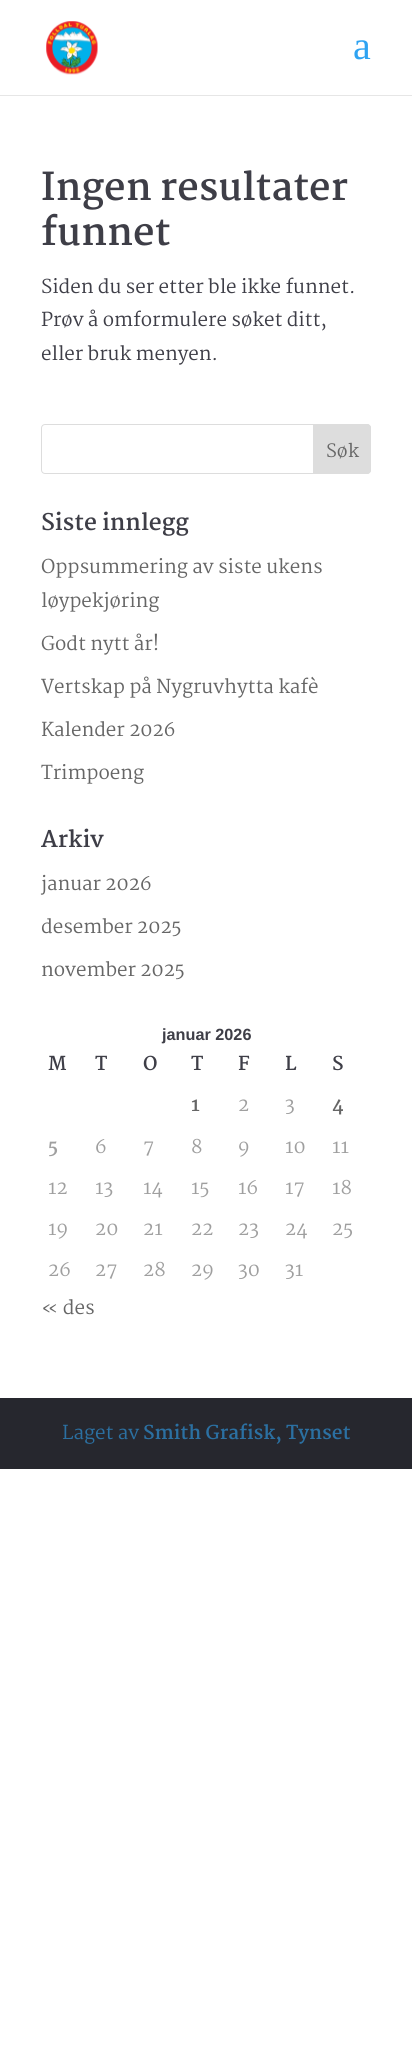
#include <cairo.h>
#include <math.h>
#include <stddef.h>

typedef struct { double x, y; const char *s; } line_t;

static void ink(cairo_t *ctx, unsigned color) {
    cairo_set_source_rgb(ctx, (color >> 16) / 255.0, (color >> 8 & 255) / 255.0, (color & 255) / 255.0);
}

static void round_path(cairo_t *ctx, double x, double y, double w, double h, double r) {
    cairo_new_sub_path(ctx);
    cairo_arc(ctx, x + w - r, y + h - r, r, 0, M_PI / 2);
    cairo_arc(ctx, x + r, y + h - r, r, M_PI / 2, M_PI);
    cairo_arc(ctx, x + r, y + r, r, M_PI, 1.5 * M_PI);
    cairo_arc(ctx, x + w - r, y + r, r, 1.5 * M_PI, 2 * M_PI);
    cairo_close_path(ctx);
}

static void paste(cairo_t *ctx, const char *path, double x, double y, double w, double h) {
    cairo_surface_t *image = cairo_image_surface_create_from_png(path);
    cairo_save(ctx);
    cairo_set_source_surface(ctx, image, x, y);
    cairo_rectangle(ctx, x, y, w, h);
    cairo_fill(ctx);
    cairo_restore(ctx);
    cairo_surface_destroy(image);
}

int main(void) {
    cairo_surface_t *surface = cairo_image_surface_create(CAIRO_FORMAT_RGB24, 412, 2071);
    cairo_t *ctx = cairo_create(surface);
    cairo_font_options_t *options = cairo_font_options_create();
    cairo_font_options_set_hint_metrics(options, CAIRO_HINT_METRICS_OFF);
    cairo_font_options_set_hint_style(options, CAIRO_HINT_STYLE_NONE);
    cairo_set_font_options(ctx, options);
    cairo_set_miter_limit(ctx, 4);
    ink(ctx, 0xFFFFFF);
    cairo_paint(ctx);
    ink(ctx, 0xE6E6E6);
    cairo_new_path(ctx);
    cairo_move_to(ctx, 0, 95);
    cairo_line_to(ctx, 0, 96);
    cairo_line_to(ctx, 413, 96);
    cairo_line_to(ctx, 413, 1);
    cairo_line_to(ctx, 412, 1);
    cairo_line_to(ctx, 412, 95);
    cairo_close_path(ctx);
    cairo_fill(ctx);
    paste(ctx, "media/1.png", 46, 21, 52, 54);
    cairo_select_font_face(ctx, "Liberation Serif", CAIRO_FONT_SLANT_NORMAL, CAIRO_FONT_WEIGHT_NORMAL);
    cairo_set_font_size(ctx, 40);
    ink(ctx, 0x2EA3F2);
    cairo_move_to(ctx, 353, 59);
    cairo_show_text(ctx, "a");
    cairo_select_font_face(ctx, "Martel", CAIRO_FONT_SLANT_NORMAL, CAIRO_FONT_WEIGHT_BOLD);
    cairo_set_font_size(ctx, 37.5);
    ink(ctx, 0x3E3E47);
    cairo_move_to(ctx, 41, 200);
    cairo_show_text(ctx, "Ingen resultater");
    cairo_move_to(ctx, 41, 245);
    cairo_show_text(ctx, "funnet");
    cairo_select_font_face(ctx, "Martel", CAIRO_FONT_SLANT_NORMAL, CAIRO_FONT_WEIGHT_NORMAL);
    cairo_set_font_size(ctx, 18.75);
    {
        static const line_t items[] = {
            {41, 293, "Siden du ser etter ble ikke funnet."},
            {41, 326, "Prøv å omformulere søket ditt,"},
            {41, 360, "eller bruk menyen."},
        };
        for (size_t i = 0; i < sizeof items / sizeof *items; i++) {
            cairo_move_to(ctx, items[i].x, items[i].y);
            cairo_show_text(ctx, items[i].s);
        }
    }
    round_path(ctx, 41.5, 424.5, 329, 49, 3.5);
    ink(ctx, 0xDDDDDD);
    cairo_set_line_width(ctx, 1);
    cairo_stroke(ctx);
    cairo_new_path(ctx);
    cairo_move_to(ctx, 313.5, 424.5);
    cairo_line_to(ctx, 367, 424.5);
    cairo_curve_to(ctx, 369, 424.5, 370.5, 426, 370.5, 428);
    cairo_line_to(ctx, 370.5, 470);
    cairo_curve_to(ctx, 370.5, 472, 369, 473.5, 367, 473.5);
    cairo_line_to(ctx, 313.5, 473.5);
    cairo_close_path(ctx);
    cairo_fill_preserve(ctx);
    cairo_stroke(ctx);
    cairo_set_font_size(ctx, 18);
    ink(ctx, 0x666666);
    cairo_move_to(ctx, 326, 457);
    cairo_show_text(ctx, "Søk");
    cairo_select_font_face(ctx, "Martel", CAIRO_FONT_SLANT_NORMAL, CAIRO_FONT_WEIGHT_BOLD);
    cairo_set_font_size(ctx, 22.5);
    ink(ctx, 0x3E3E47);
    cairo_move_to(ctx, 41, 530);
    cairo_show_text(ctx, "Siste innlegg");
    cairo_select_font_face(ctx, "Martel", CAIRO_FONT_SLANT_NORMAL, CAIRO_FONT_WEIGHT_NORMAL);
    cairo_set_font_size(ctx, 18.75);
    ink(ctx, 0x666666);
    {
        static const line_t items[] = {
            {41, 573, "Oppsummering av siste ukens"},
            {41, 607, "løypekjøring"},
            {41, 650, "Godt nytt år!"},
            {41, 693, "Vertskap på Nygruvhytta kafè"},
            {41, 736, "Kalender 2026"},
            {41, 779, "Trimpoeng"},
        };
        for (size_t i = 0; i < sizeof items / sizeof *items; i++) {
            cairo_move_to(ctx, items[i].x, items[i].y);
            cairo_show_text(ctx, items[i].s);
        }
    }
    cairo_select_font_face(ctx, "Martel", CAIRO_FONT_SLANT_NORMAL, CAIRO_FONT_WEIGHT_BOLD);
    cairo_set_font_size(ctx, 22.5);
    ink(ctx, 0x3E3E47);
    cairo_move_to(ctx, 41, 847);
    cairo_show_text(ctx, "Arkiv");
    cairo_select_font_face(ctx, "Martel", CAIRO_FONT_SLANT_NORMAL, CAIRO_FONT_WEIGHT_NORMAL);
    cairo_set_font_size(ctx, 18.75);
    ink(ctx, 0x666666);
    {
        static const line_t items[] = {
            {41, 890, "januar 2026"},
            {41, 933, "desember 2025"},
            {41, 976, "november 2025"},
        };
        for (size_t i = 0; i < sizeof items / sizeof *items; i++) {
            cairo_move_to(ctx, items[i].x, items[i].y);
            cairo_show_text(ctx, items[i].s);
        }
    }
    cairo_select_font_face(ctx, "Liberation Sans", CAIRO_FONT_SLANT_NORMAL, CAIRO_FONT_WEIGHT_BOLD);
    cairo_set_font_size(ctx, 16.25);
    ink(ctx, 0x3E3E47);
    cairo_move_to(ctx, 162, 1040);
    cairo_show_text(ctx, "januar 2026");
    cairo_select_font_face(ctx, "Martel", CAIRO_FONT_SLANT_NORMAL, CAIRO_FONT_WEIGHT_BOLD);
    cairo_set_font_size(ctx, 18.75);
    {
        static const line_t items[] = {
            {48, 1070, "M"},
            {95, 1070, "T"},
            {143, 1070, "O"},
            {191, 1070, "T"},
            {238, 1070, "F"},
            {285, 1070, "L"},
            {332, 1070, "S"},
        };
        for (size_t i = 0; i < sizeof items / sizeof *items; i++) {
            cairo_move_to(ctx, items[i].x, items[i].y);
            cairo_show_text(ctx, items[i].s);
        }
    }
    ink(ctx, 0x666666);
    cairo_move_to(ctx, 191, 1111);
    cairo_show_text(ctx, "1");
    cairo_select_font_face(ctx, "Martel", CAIRO_FONT_SLANT_NORMAL, CAIRO_FONT_WEIGHT_NORMAL);
    ink(ctx, 0x9F9F9F);
    cairo_move_to(ctx, 238, 1111);
    cairo_show_text(ctx, "2");
    cairo_move_to(ctx, 285, 1111);
    cairo_show_text(ctx, "3");
    cairo_select_font_face(ctx, "Martel", CAIRO_FONT_SLANT_NORMAL, CAIRO_FONT_WEIGHT_BOLD);
    ink(ctx, 0x666666);
    cairo_move_to(ctx, 332, 1111);
    cairo_show_text(ctx, "4");
    ink(ctx, 0x9F9F9F);
    cairo_move_to(ctx, 48, 1153);
    cairo_show_text(ctx, "5");
    cairo_select_font_face(ctx, "Martel", CAIRO_FONT_SLANT_NORMAL, CAIRO_FONT_WEIGHT_NORMAL);
    {
        static const line_t items[] = {
            {95, 1153, "6"},
            {143, 1153, "7"},
            {191, 1153, "8"},
            {238, 1153, "9"},
            {285, 1153, "10"},
            {332, 1153, "11"},
            {48, 1194, "12"},
            {95, 1194, "13"},
            {143, 1194, "14"},
            {191, 1194, "15"},
            {238, 1194, "16"},
            {285, 1194, "17"},
            {332, 1194, "18"},
            {48, 1235, "19"},
            {95, 1235, "20"},
            {143, 1235, "21"},
            {191, 1235, "22"},
            {238, 1235, "23"},
            {285, 1235, "24"},
            {332, 1235, "25"},
            {48, 1276, "26"},
            {95, 1276, "27"},
            {143, 1276, "28"},
            {191, 1276, "29"},
            {238, 1276, "30"},
            {285, 1276, "31"},
        };
        for (size_t i = 0; i < sizeof items / sizeof *items; i++) {
            cairo_move_to(ctx, items[i].x, items[i].y);
            cairo_show_text(ctx, items[i].s);
        }
    }
    ink(ctx, 0x666666);
    cairo_move_to(ctx, 41, 1314);
    cairo_show_text(ctx, "« des");
    ink(ctx, 0x26272E);
    cairo_rectangle(ctx, 0, 1398, 412, 71);
    cairo_fill(ctx);
    ink(ctx, 0x2B70A2);
    cairo_move_to(ctx, 62, 1439);
    cairo_show_text(ctx, "Laget av");
    cairo_select_font_face(ctx, "Martel", CAIRO_FONT_SLANT_NORMAL, CAIRO_FONT_WEIGHT_BOLD);
    cairo_move_to(ctx, 143, 1439);
    cairo_show_text(ctx, "Smith Grafisk, Tynset");
    cairo_surface_write_to_png(surface, "image.png");
    cairo_font_options_destroy(options);
    cairo_destroy(ctx);
    cairo_surface_destroy(surface);
    return 0;
}
